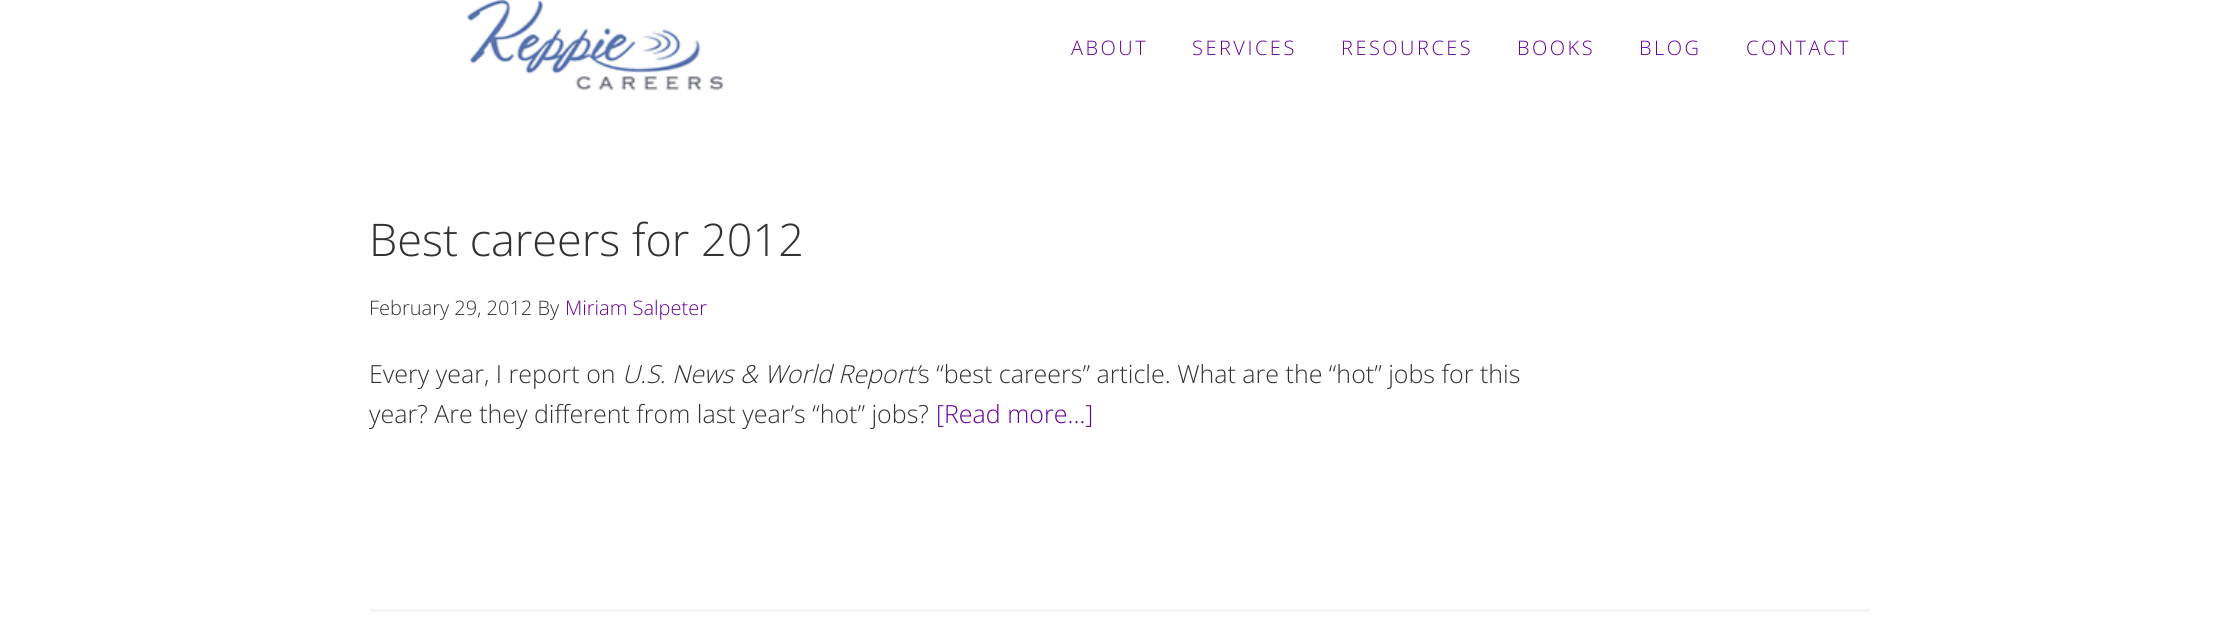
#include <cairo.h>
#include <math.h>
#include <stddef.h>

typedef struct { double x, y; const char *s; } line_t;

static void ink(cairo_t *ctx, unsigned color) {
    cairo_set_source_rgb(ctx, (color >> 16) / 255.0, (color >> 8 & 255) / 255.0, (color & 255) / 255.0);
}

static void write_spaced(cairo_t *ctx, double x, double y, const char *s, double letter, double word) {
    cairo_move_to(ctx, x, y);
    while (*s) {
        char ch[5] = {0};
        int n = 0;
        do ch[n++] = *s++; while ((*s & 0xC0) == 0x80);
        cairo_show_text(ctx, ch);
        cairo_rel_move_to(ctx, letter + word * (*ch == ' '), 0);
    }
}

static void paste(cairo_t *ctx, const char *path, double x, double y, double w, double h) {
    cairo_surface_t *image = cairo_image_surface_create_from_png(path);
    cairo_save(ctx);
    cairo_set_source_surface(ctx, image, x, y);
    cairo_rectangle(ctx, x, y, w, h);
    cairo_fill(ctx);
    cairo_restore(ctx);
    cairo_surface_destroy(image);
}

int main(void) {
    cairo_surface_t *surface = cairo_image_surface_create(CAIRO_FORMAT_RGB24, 2238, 626);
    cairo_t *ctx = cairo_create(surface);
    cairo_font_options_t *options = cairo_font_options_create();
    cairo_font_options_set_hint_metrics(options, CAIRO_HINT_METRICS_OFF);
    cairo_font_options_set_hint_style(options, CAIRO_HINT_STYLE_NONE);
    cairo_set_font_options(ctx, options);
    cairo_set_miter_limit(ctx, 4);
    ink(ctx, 0xFFFFFF);
    cairo_paint(ctx);
    paste(ctx, "media/1.png", 466, 0, 257, 91);
    cairo_select_font_face(ctx, "Open Sans Light", CAIRO_FONT_SLANT_NORMAL, CAIRO_FONT_WEIGHT_NORMAL);
    cairo_set_font_size(ctx, 20);
    ink(ctx, 0x660099);
    {
        static const line_t items[] = {
            {1071, 55, "ABOUT"},
            {1192, 55, "SERVICES"},
            {1341, 55, "RESOURCES"},
            {1517, 55, "BOOKS"},
            {1639, 55, "BLOG"},
            {1746, 55, "CONTACT"},
        };
        for (size_t i = 0; i < sizeof items / sizeof *items; i++) {
            write_spaced(ctx, items[i].x, items[i].y, items[i].s, 2.5, 0);
        }
    }
    cairo_set_font_size(ctx, 45);
    ink(ctx, 0x333333);
    cairo_move_to(ctx, 369, 256);
    cairo_show_text(ctx, "Best careers for 2012");
    cairo_set_font_size(ctx, 20);
    cairo_move_to(ctx, 369, 315);
    cairo_show_text(ctx, "February 29, 2012 By");
    ink(ctx, 0x660099);
    cairo_move_to(ctx, 565, 315);
    cairo_show_text(ctx, "Miriam Salpeter");
    cairo_set_font_size(ctx, 25);
    ink(ctx, 0x333333);
    cairo_move_to(ctx, 369, 383);
    cairo_show_text(ctx, "Every year, I report on");
    cairo_select_font_face(ctx, "Open Sans Light", CAIRO_FONT_SLANT_ITALIC, CAIRO_FONT_WEIGHT_NORMAL);
    cairo_move_to(ctx, 622, 383);
    cairo_show_text(ctx, "U.S. News & World Report’");
    cairo_select_font_face(ctx, "Open Sans Light", CAIRO_FONT_SLANT_NORMAL, CAIRO_FONT_WEIGHT_NORMAL);
    cairo_move_to(ctx, 918, 383);
    cairo_show_text(ctx, "s “best careers” article. What are the “hot” jobs for this");
    cairo_move_to(ctx, 369, 423);
    cairo_show_text(ctx, "year? Are they different from last year’s “hot” jobs?");
    ink(ctx, 0x660099);
    cairo_move_to(ctx, 936, 423);
    cairo_show_text(ctx, "[Read more…]");
    ink(ctx, 0xF5F5F5);
    cairo_rectangle(ctx, 370, 609, 1500, 3);
    cairo_fill(ctx);
    cairo_surface_write_to_png(surface, "image.png");
    cairo_font_options_destroy(options);
    cairo_destroy(ctx);
    cairo_surface_destroy(surface);
    return 0;
}
